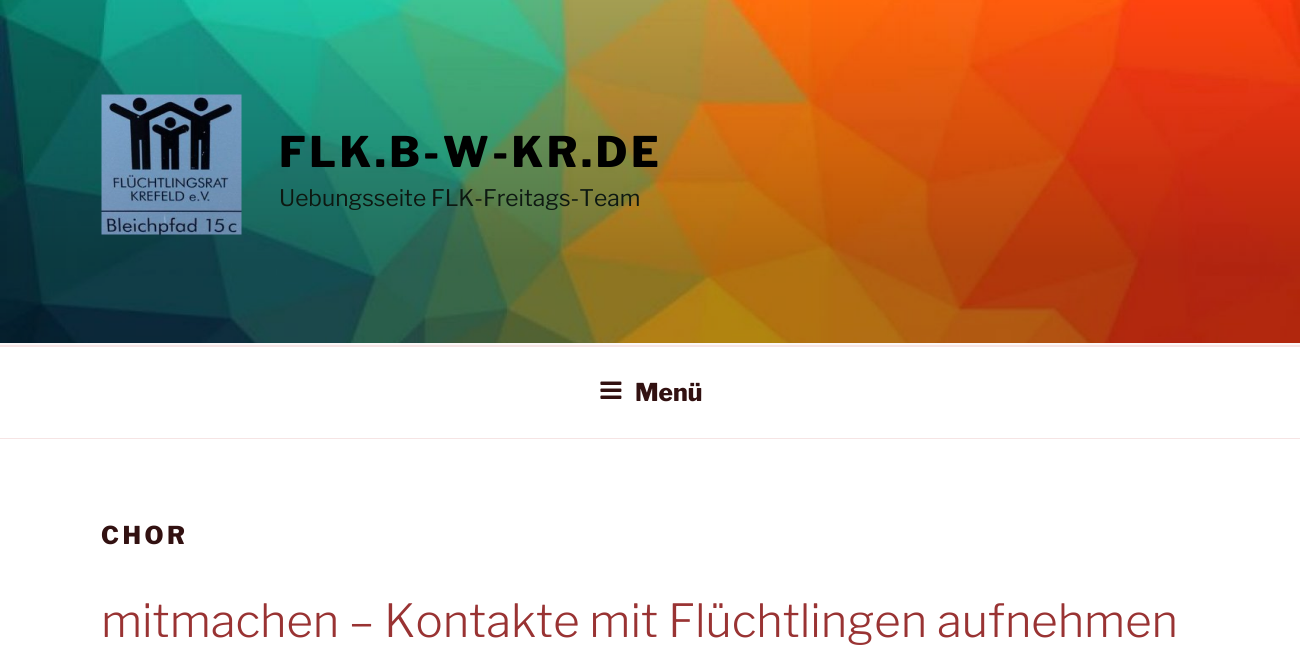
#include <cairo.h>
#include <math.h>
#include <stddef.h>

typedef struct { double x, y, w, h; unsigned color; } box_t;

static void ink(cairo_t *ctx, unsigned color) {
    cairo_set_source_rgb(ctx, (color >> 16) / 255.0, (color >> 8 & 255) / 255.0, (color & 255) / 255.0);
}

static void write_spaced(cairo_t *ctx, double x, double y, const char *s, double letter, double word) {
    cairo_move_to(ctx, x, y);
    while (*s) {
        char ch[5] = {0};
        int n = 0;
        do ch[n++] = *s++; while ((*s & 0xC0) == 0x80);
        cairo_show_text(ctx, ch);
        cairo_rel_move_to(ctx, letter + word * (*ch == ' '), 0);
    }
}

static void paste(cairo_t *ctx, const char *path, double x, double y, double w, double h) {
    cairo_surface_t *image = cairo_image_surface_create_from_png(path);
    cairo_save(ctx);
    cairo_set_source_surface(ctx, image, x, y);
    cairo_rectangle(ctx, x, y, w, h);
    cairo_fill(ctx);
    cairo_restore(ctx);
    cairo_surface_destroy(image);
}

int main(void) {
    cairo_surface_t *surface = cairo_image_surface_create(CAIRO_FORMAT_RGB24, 1300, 666);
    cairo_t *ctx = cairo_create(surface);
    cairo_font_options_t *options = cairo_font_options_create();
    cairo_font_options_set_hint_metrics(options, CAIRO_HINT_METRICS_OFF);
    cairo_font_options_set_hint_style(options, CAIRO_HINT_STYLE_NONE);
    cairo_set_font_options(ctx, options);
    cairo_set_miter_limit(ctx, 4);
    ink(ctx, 0xFCF7F7);
    cairo_paint(ctx);
    paste(ctx, "media/1.png", 0, 0, 1300, 343);
    paste(ctx, "media/2.png", 101, 94, 141, 141);
    cairo_select_font_face(ctx, "Libre Franklin ExtraBold", CAIRO_FONT_SLANT_NORMAL, CAIRO_FONT_WEIGHT_NORMAL);
    cairo_set_font_size(ctx, 42);
    ink(ctx, 0x000000);
    write_spaced(ctx, 279, 167, "FLK.B-W-KR.DE", 3.4, 0);
    cairo_select_font_face(ctx, "Libre Franklin", CAIRO_FONT_SLANT_NORMAL, CAIRO_FONT_WEIGHT_NORMAL);
    cairo_set_font_size(ctx, 22.75);
    ink(ctx, 0x0D1811);
    cairo_move_to(ctx, 279, 206);
    cairo_show_text(ctx, "Uebungsseite FLK-Freitags-Team");
    {
        static const box_t items[] = {
            {0, 347, 1300, 91, 0xFFFFFF},
            {0, 345, 1300, 2, 0xF6E4E4},
            {0, 438, 1300, 1, 0xF6E4E4},
        };
        for (size_t i = 0; i < sizeof items / sizeof *items; i++) {
            ink(ctx, items[i].color);
            cairo_rectangle(ctx, items[i].x, items[i].y, items[i].w, items[i].h);
            cairo_fill(ctx);
        }
    }
    paste(ctx, "media/3.png", 600, 381, 22, 18);
    cairo_select_font_face(ctx, "Libre Franklin ExtraBold", CAIRO_FONT_SLANT_NORMAL, CAIRO_FONT_WEIGHT_NORMAL);
    cairo_set_font_size(ctx, 24.5);
    ink(ctx, 0x321111);
    cairo_move_to(ctx, 635, 401);
    cairo_show_text(ctx, "Menü");
    ink(ctx, 0xFFFFFF);
    cairo_rectangle(ctx, 0, 439, 1300, 227);
    cairo_fill(ctx);
    ink(ctx, 0x321111);
    write_spaced(ctx, 101, 544, "CHOR", 3.5, 0);
    cairo_select_font_face(ctx, "Libre Franklin Light", CAIRO_FONT_SLANT_NORMAL, CAIRO_FONT_WEIGHT_NORMAL);
    cairo_set_font_size(ctx, 45.5);
    ink(ctx, 0x993333);
    cairo_move_to(ctx, 101, 637);
    cairo_show_text(ctx, "mitmachen – Kontakte mit Flüchtlingen aufnehmen");
    cairo_surface_write_to_png(surface, "image.png");
    cairo_font_options_destroy(options);
    cairo_destroy(ctx);
    cairo_surface_destroy(surface);
    return 0;
}
